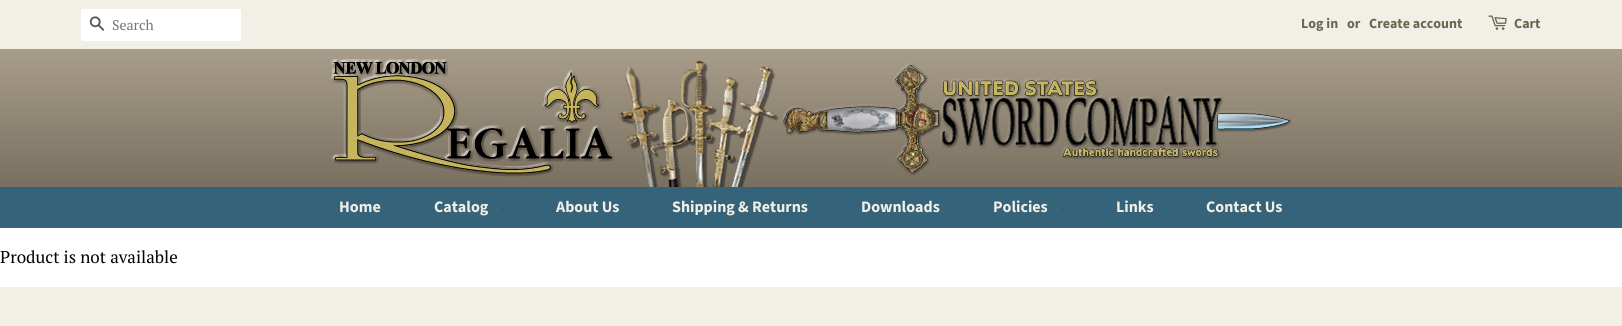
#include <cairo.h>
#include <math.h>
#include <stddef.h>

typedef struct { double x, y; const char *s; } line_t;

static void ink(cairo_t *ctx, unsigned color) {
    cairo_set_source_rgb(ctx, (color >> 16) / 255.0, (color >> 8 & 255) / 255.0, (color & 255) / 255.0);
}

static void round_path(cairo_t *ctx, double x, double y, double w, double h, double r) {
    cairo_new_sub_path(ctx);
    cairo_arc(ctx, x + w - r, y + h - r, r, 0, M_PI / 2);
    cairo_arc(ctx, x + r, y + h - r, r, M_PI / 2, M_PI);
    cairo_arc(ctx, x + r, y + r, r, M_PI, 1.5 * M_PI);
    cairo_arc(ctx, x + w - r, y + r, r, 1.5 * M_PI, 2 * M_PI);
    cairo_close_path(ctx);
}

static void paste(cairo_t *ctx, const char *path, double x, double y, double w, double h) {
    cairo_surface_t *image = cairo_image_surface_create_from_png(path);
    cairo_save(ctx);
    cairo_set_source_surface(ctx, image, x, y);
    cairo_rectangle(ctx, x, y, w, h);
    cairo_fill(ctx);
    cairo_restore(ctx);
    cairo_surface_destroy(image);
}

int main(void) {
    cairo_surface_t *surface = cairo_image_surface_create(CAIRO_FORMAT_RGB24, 1622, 326);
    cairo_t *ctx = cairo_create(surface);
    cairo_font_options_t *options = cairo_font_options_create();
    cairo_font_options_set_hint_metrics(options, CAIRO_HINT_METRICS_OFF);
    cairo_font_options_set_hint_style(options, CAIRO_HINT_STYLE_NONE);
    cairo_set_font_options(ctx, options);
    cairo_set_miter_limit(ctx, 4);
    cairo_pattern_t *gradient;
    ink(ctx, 0xFFFFFF);
    cairo_paint(ctx);
    ink(ctx, 0xF1EFE6);
    cairo_rectangle(ctx, 0, 0, 1622, 49);
    cairo_fill(ctx);
    ink(ctx, 0xFFFFFF);
    round_path(ctx, 81, 9, 160, 32, 2);
    cairo_fill(ctx);
    paste(ctx, "media/1.png", 89, 16, 16, 15);
    cairo_select_font_face(ctx, "PT Serif", CAIRO_FONT_SLANT_NORMAL, CAIRO_FONT_WEIGHT_NORMAL);
    cairo_set_font_size(ctx, 14);
    ink(ctx, 0x757575);
    cairo_move_to(ctx, 112, 30);
    cairo_show_text(ctx, "Search");
    cairo_select_font_face(ctx, "Source Sans Pro", CAIRO_FONT_SLANT_NORMAL, CAIRO_FONT_WEIGHT_BOLD);
    ink(ctx, 0x6B654F);
    {
        static const line_t items[] = {
            {1301, 28, "Log in"},
            {1347, 28, "or"},
            {1369, 28, "Create account"},
        };
        for (size_t i = 0; i < sizeof items / sizeof *items; i++) {
            cairo_move_to(ctx, items[i].x, items[i].y);
            cairo_show_text(ctx, items[i].s);
        }
    }
    paste(ctx, "media/2.png", 1488, 15, 19, 15);
    cairo_move_to(ctx, 1514, 28);
    cairo_show_text(ctx, "Cart");
    gradient = cairo_pattern_create_linear(811, 49, 811, 228);
    cairo_pattern_add_color_stop_rgba(gradient, 0, 0.659, 0.616, 0.541, 1);
    cairo_pattern_add_color_stop_rgba(gradient, 1, 0.42, 0.384, 0.325, 1);
    cairo_set_source(ctx, gradient);
    cairo_pattern_destroy(gradient);
    cairo_rectangle(ctx, 0, 49, 1622, 138);
    cairo_fill(ctx);
    paste(ctx, "media/3.png", 331, 59, 961, 128);
    ink(ctx, 0x35637A);
    cairo_rectangle(ctx, 0, 187, 1622, 41);
    cairo_fill(ctx);
    cairo_set_font_size(ctx, 16);
    ink(ctx, 0xF1EFE6);
    cairo_move_to(ctx, 339, 212);
    cairo_show_text(ctx, "Home");
    cairo_move_to(ctx, 434, 212);
    cairo_show_text(ctx, "Catalog");
    paste(ctx, "media/4.png", 492, 205, 9, 5);
    {
        static const line_t items[] = {
            {556, 212, "About Us"},
            {672, 212, "Shipping & Returns"},
            {861, 212, "Downloads"},
            {993, 212, "Policies"},
        };
        for (size_t i = 0; i < sizeof items / sizeof *items; i++) {
            cairo_move_to(ctx, items[i].x, items[i].y);
            cairo_show_text(ctx, items[i].s);
        }
    }
    paste(ctx, "media/4.png", 1052, 205, 9, 5);
    cairo_move_to(ctx, 1116, 212);
    cairo_show_text(ctx, "Links");
    cairo_move_to(ctx, 1206, 212);
    cairo_show_text(ctx, "Contact Us");
    cairo_select_font_face(ctx, "PT Serif", CAIRO_FONT_SLANT_NORMAL, CAIRO_FONT_WEIGHT_NORMAL);
    cairo_set_font_size(ctx, 17);
    ink(ctx, 0x000000);
    cairo_move_to(ctx, 0, 263);
    cairo_show_text(ctx, "Product is not available");
    ink(ctx, 0xF1EFE6);
    cairo_rectangle(ctx, 0, 287, 1622, 39);
    cairo_fill(ctx);
    cairo_surface_write_to_png(surface, "image.png");
    cairo_font_options_destroy(options);
    cairo_destroy(ctx);
    cairo_surface_destroy(surface);
    return 0;
}
